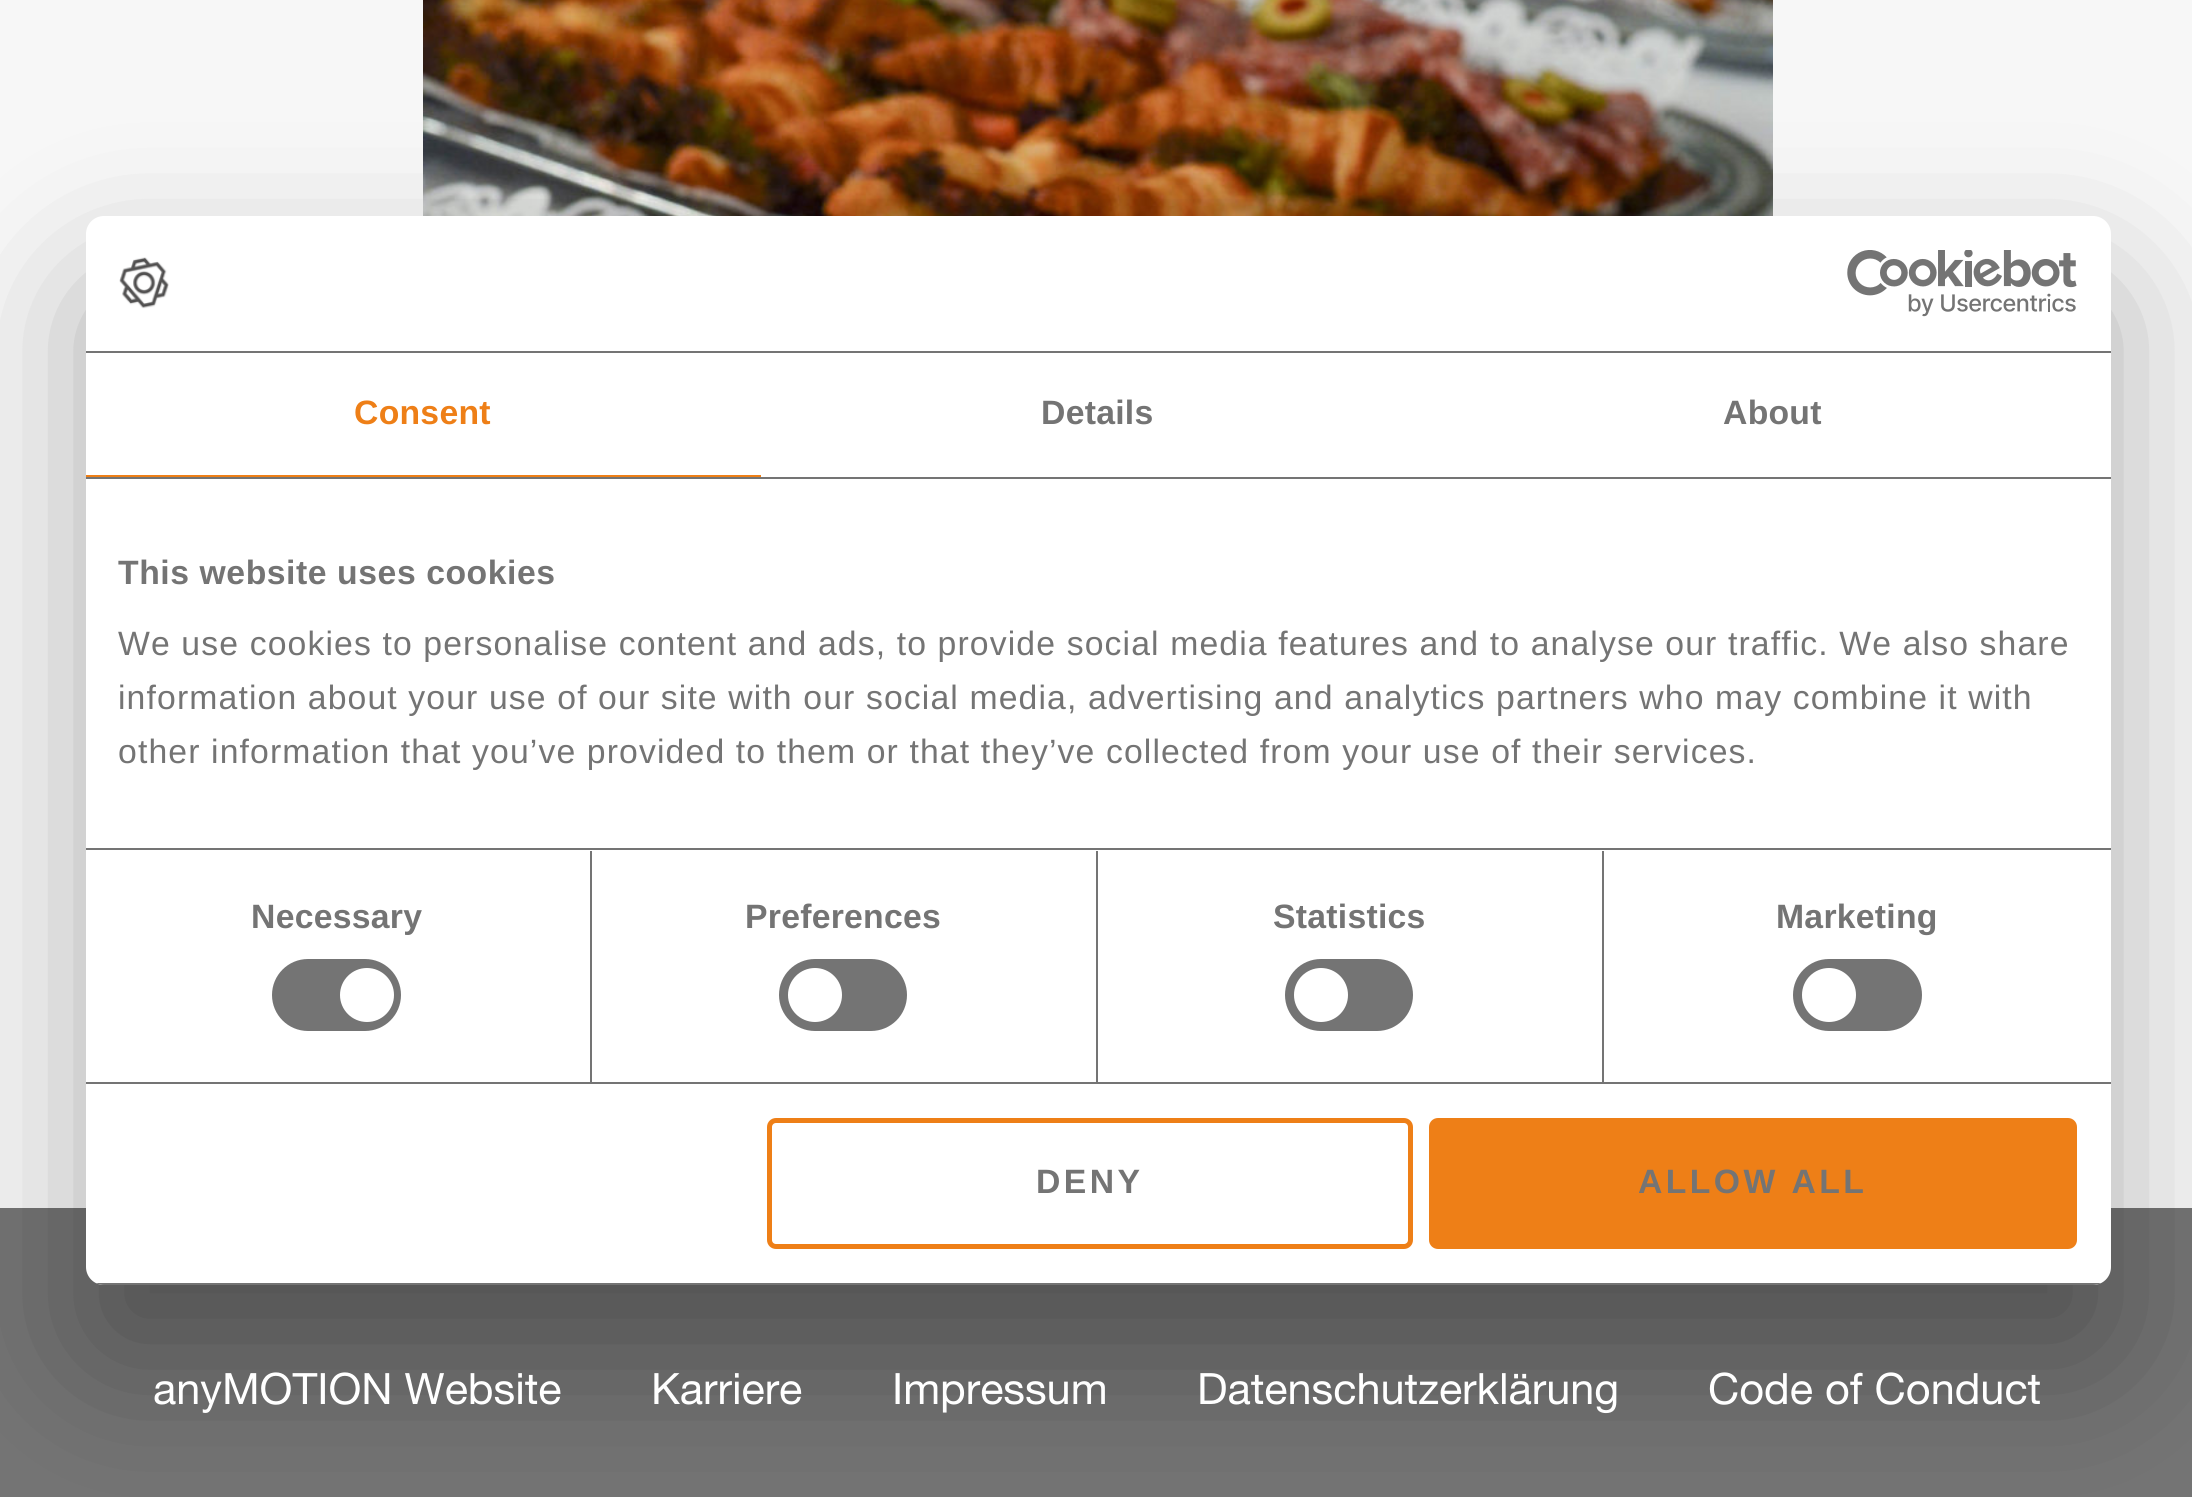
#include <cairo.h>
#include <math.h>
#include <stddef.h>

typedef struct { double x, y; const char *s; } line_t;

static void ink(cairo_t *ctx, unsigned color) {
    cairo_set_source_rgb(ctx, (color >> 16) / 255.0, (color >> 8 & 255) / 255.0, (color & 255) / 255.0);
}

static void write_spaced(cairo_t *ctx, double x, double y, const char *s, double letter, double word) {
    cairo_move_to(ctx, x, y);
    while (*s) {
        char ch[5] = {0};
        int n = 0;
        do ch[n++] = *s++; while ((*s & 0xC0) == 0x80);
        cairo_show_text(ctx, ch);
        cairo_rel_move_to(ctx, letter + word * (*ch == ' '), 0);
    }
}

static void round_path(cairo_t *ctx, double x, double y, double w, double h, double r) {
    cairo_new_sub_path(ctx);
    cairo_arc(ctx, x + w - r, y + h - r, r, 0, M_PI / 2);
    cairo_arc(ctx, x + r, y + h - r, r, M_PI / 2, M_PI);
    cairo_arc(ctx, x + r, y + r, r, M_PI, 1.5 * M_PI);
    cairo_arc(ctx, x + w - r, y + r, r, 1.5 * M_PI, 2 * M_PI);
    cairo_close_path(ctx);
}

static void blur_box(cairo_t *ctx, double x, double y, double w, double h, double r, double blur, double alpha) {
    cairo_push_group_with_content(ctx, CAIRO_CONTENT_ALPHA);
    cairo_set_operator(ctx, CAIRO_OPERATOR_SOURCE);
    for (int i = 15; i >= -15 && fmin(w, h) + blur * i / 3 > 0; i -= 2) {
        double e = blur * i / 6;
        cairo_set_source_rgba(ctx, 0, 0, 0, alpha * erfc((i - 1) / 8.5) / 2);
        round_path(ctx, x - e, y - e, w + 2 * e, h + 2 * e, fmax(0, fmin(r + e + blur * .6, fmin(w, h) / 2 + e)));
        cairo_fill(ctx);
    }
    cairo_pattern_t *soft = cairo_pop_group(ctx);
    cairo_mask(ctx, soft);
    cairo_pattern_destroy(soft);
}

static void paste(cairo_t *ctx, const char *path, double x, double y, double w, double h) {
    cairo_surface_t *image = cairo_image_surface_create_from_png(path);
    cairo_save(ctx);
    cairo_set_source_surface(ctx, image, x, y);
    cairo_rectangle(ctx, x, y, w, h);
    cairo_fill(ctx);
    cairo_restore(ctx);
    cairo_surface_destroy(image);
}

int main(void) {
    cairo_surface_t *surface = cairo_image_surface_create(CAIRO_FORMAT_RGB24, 2192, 1497);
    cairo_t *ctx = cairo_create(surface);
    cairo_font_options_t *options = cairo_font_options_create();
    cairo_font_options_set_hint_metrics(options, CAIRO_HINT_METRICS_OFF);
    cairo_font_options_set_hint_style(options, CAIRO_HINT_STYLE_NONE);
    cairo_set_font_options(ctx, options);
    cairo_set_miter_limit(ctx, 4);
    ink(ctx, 0xF7F7F7);
    cairo_paint(ctx);
    paste(ctx, "media/1.png", 423, 0, 1350, 216);
    ink(ctx, 0x747474);
    cairo_rectangle(ctx, 0, 1208, 2192, 289);
    cairo_fill(ctx);
    ink(ctx, 0x000000);
    blur_box(ctx, 86, 288, 2025, 1069, 18, 76.5, 0.3);
    ink(ctx, 0xFFFFFF);
    round_path(ctx, 86, 216, 2025, 1069, 18);
    cairo_fill(ctx);
    ink(ctx, 0x747474);
    cairo_rectangle(ctx, 86, 351, 2025, 2);
    cairo_fill(ctx);
    paste(ctx, "media/2.png", 119, 257, 50, 52);
    paste(ctx, "media/3.png", 1847, 250, 230, 67);
    cairo_rectangle(ctx, 86, 477, 2025, 2);
    cairo_fill(ctx);
    ink(ctx, 0xEE7F17);
    cairo_rectangle(ctx, 86, 475, 675, 2);
    cairo_fill(ctx);
    cairo_select_font_face(ctx, "Liberation Sans", CAIRO_FONT_SLANT_NORMAL, CAIRO_FONT_WEIGHT_BOLD);
    cairo_set_font_size(ctx, 33.75);
    write_spaced(ctx, 354, 424, "Consent", 0.25, 0);
    ink(ctx, 0x747474);
    write_spaced(ctx, 1041, 424, "Details", 0.25, 0);
    write_spaced(ctx, 1723, 424, "About", 0.25, 0);
    cairo_rectangle(ctx, 86, 848, 2025, 2);
    cairo_fill(ctx);
    write_spaced(ctx, 118, 584, "This website uses cookies", 0.55, 0);
    cairo_select_font_face(ctx, "Liberation Sans", CAIRO_FONT_SLANT_NORMAL, CAIRO_FONT_WEIGHT_NORMAL);
    {
        static const line_t items[] = {
            {118, 655, "We use cookies to personalise content and ads, to provide social media features and to analyse our traffic. We also share"},
            {118, 709, "information about your use of our site with our social media, advertising and analytics partners who may combine it with"},
            {118, 763, "other information that you’ve provided to them or that they’ve collected from your use of their services."},
        };
        for (size_t i = 0; i < sizeof items / sizeof *items; i++) {
            write_spaced(ctx, items[i].x, items[i].y, items[i].s, 1.12, 0);
        }
    }
    cairo_rectangle(ctx, 86, 1082, 2025, 2);
    cairo_fill(ctx);
    cairo_rectangle(ctx, 590, 851, 2, 231);
    cairo_fill(ctx);
    cairo_select_font_face(ctx, "Liberation Sans", CAIRO_FONT_SLANT_NORMAL, CAIRO_FONT_WEIGHT_BOLD);
    write_spaced(ctx, 251, 928, "Necessary", 0.25, 0);
    round_path(ctx, 272, 959, 129, 72, 36);
    cairo_fill(ctx);
    ink(ctx, 0xFFFFFF);
    cairo_arc(ctx, 367, 995, 27, 0, 2 * M_PI);
    cairo_fill(ctx);
    ink(ctx, 0x747474);
    cairo_rectangle(ctx, 1096, 851, 2, 231);
    cairo_fill(ctx);
    write_spaced(ctx, 745, 928, "Preferences", 0.25, 0);
    round_path(ctx, 779, 959, 128, 72, 36);
    cairo_fill(ctx);
    ink(ctx, 0xFFFFFF);
    cairo_arc(ctx, 815, 995, 27, 0, 2 * M_PI);
    cairo_fill(ctx);
    ink(ctx, 0x747474);
    cairo_rectangle(ctx, 1602, 851, 2, 231);
    cairo_fill(ctx);
    write_spaced(ctx, 1273, 928, "Statistics", 0.25, 0);
    round_path(ctx, 1285, 959, 128, 72, 36);
    cairo_fill(ctx);
    ink(ctx, 0xFFFFFF);
    cairo_arc(ctx, 1321, 995, 27, 0, 2 * M_PI);
    cairo_fill(ctx);
    ink(ctx, 0x747474);
    write_spaced(ctx, 1776, 928, "Marketing", 0.25, 0);
    round_path(ctx, 1793, 959, 129, 72, 36);
    cairo_fill(ctx);
    ink(ctx, 0xFFFFFF);
    cairo_arc(ctx, 1829, 995, 27, 0, 2 * M_PI);
    cairo_fill(ctx);
    cairo_save(ctx);
    round_path(ctx, 86, 216, 2025, 1069, 18);
    cairo_clip(ctx);
    ink(ctx, 0x747474);
    cairo_rectangle(ctx, 96, 1283, 2005, 2);
    cairo_fill(ctx);
    cairo_restore(ctx);
    round_path(ctx, 769.5, 1120.5, 641, 126, 6.5);
    ink(ctx, 0xEE7F17);
    cairo_set_line_width(ctx, 5);
    cairo_stroke(ctx);
    ink(ctx, 0x747474);
    write_spaced(ctx, 1036, 1193, "DENY", 3.4, 0);
    ink(ctx, 0xEE7F17);
    round_path(ctx, 1431.5, 1120.5, 643, 126, 6.5);
    cairo_fill_preserve(ctx);
    cairo_stroke(ctx);
    ink(ctx, 0x747474);
    write_spaced(ctx, 1638, 1193, "ALLOW ALL", 3.4, 0);
    cairo_select_font_face(ctx, "Helvetica Neue", CAIRO_FONT_SLANT_NORMAL, CAIRO_FONT_WEIGHT_NORMAL);
    cairo_set_font_size(ctx, 43.25);
    ink(ctx, 0xFFFFFF);
    {
        static const line_t items[] = {
            {153, 1404, "anyMOTION Website"},
            {651, 1404, "Karriere"},
            {892, 1404, "Impressum"},
            {1197, 1404, "Datenschutzerklärung"},
            {1708, 1404, "Code of Conduct"},
        };
        for (size_t i = 0; i < sizeof items / sizeof *items; i++) {
            cairo_move_to(ctx, items[i].x, items[i].y);
            cairo_show_text(ctx, items[i].s);
        }
    }
    cairo_surface_write_to_png(surface, "image.png");
    cairo_font_options_destroy(options);
    cairo_destroy(ctx);
    cairo_surface_destroy(surface);
    return 0;
}
